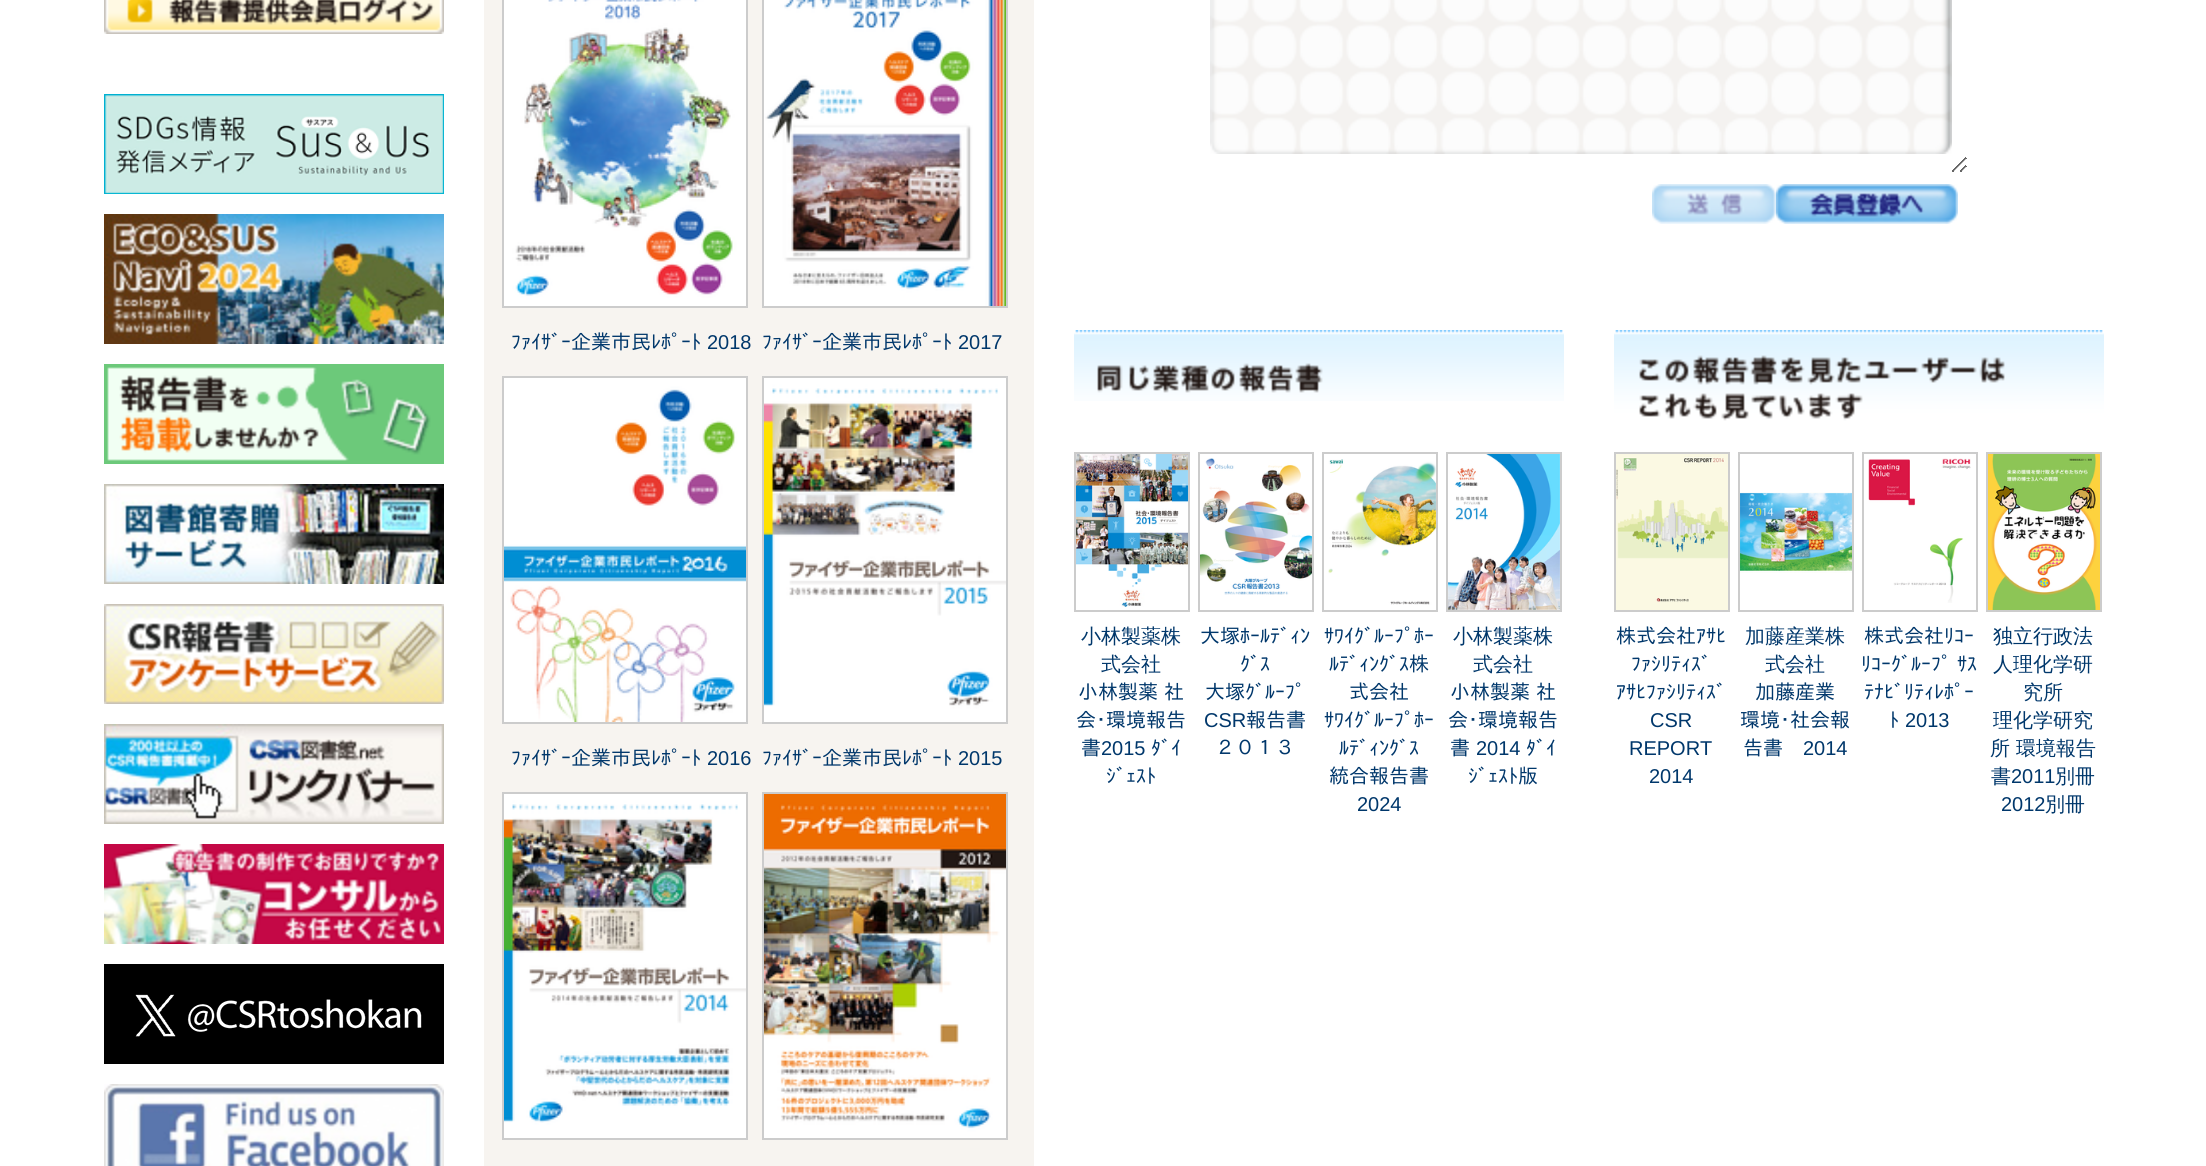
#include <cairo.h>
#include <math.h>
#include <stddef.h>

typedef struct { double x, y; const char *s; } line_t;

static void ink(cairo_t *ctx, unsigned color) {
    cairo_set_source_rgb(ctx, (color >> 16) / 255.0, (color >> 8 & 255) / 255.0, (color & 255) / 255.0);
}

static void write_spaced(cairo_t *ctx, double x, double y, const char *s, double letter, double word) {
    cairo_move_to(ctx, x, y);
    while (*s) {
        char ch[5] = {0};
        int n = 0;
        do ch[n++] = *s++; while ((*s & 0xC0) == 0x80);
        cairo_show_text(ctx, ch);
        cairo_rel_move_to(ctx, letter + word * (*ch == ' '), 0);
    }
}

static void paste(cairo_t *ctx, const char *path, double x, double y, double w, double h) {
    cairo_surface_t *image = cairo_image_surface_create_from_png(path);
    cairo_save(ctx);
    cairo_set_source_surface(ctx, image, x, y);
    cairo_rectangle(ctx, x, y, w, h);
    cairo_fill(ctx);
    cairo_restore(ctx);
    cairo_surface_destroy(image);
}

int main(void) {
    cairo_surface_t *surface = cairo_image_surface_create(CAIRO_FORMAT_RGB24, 2206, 1166);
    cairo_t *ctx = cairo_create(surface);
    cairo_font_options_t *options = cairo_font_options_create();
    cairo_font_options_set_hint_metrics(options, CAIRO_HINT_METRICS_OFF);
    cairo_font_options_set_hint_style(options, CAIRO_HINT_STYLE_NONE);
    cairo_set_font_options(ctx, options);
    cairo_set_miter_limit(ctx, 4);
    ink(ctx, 0xFFFFFF);
    cairo_paint(ctx);
    paste(ctx, "media/1.png", 104, 0, 340, 34);
    paste(ctx, "media/2.png", 104, 94, 340, 100);
    paste(ctx, "media/3.png", 104, 214, 340, 130);
    paste(ctx, "media/4.png", 104, 364, 340, 100);
    paste(ctx, "media/5.png", 104, 484, 340, 100);
    paste(ctx, "media/6.png", 104, 604, 340, 100);
    paste(ctx, "media/7.png", 104, 724, 340, 100);
    paste(ctx, "media/8.png", 104, 844, 340, 100);
    paste(ctx, "media/9.png", 104, 964, 340, 100);
    paste(ctx, "media/10.png", 104, 1084, 340, 82);
    ink(ctx, 0xF7F4F0);
    cairo_rectangle(ctx, 484, 0, 550, 1166);
    cairo_fill(ctx);
    cairo_rectangle(ctx, 503, -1, 244, 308);
    ink(ctx, 0xCCCCCC);
    cairo_stroke(ctx);
    paste(ctx, "media/11.png", 504, 0, 242, 306);
    cairo_select_font_face(ctx, "IPAGothic", CAIRO_FONT_SLANT_NORMAL, CAIRO_FONT_WEIGHT_NORMAL);
    cairo_set_font_size(ctx, 20);
    ink(ctx, 0x00376B);
    cairo_move_to(ctx, 511, 349);
    cairo_show_text(ctx, "ﾌｧｲｻﾞｰ企業市民ﾚﾎﾟｰﾄ");
    cairo_select_font_face(ctx, "Liberation Sans", CAIRO_FONT_SLANT_NORMAL, CAIRO_FONT_WEIGHT_NORMAL);
    cairo_move_to(ctx, 707, 349);
    cairo_show_text(ctx, "2018");
    cairo_rectangle(ctx, 763, -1, 244, 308);
    ink(ctx, 0xCCCCCC);
    cairo_stroke(ctx);
    paste(ctx, "media/12.png", 764, 0, 242, 306);
    cairo_select_font_face(ctx, "IPAGothic", CAIRO_FONT_SLANT_NORMAL, CAIRO_FONT_WEIGHT_NORMAL);
    ink(ctx, 0x00376B);
    cairo_move_to(ctx, 762, 349);
    cairo_show_text(ctx, "ﾌｧｲｻﾞｰ企業市民ﾚﾎﾟｰﾄ");
    cairo_select_font_face(ctx, "Liberation Sans", CAIRO_FONT_SLANT_NORMAL, CAIRO_FONT_WEIGHT_NORMAL);
    cairo_move_to(ctx, 958, 349);
    cairo_show_text(ctx, "2017");
    cairo_rectangle(ctx, 503, 377, 244, 346);
    ink(ctx, 0xCCCCCC);
    cairo_stroke(ctx);
    paste(ctx, "media/13.png", 504, 378, 242, 344);
    cairo_select_font_face(ctx, "IPAGothic", CAIRO_FONT_SLANT_NORMAL, CAIRO_FONT_WEIGHT_NORMAL);
    ink(ctx, 0x00376B);
    cairo_move_to(ctx, 511, 765);
    cairo_show_text(ctx, "ﾌｧｲｻﾞｰ企業市民ﾚﾎﾟｰﾄ");
    cairo_select_font_face(ctx, "Liberation Sans", CAIRO_FONT_SLANT_NORMAL, CAIRO_FONT_WEIGHT_NORMAL);
    cairo_move_to(ctx, 707, 765);
    cairo_show_text(ctx, "2016");
    cairo_rectangle(ctx, 763, 377, 244, 346);
    ink(ctx, 0xCCCCCC);
    cairo_stroke(ctx);
    paste(ctx, "media/14.png", 764, 378, 242, 344);
    cairo_select_font_face(ctx, "IPAGothic", CAIRO_FONT_SLANT_NORMAL, CAIRO_FONT_WEIGHT_NORMAL);
    ink(ctx, 0x00376B);
    cairo_move_to(ctx, 762, 765);
    cairo_show_text(ctx, "ﾌｧｲｻﾞｰ企業市民ﾚﾎﾟｰﾄ");
    cairo_select_font_face(ctx, "Liberation Sans", CAIRO_FONT_SLANT_NORMAL, CAIRO_FONT_WEIGHT_NORMAL);
    cairo_move_to(ctx, 958, 765);
    cairo_show_text(ctx, "2015");
    cairo_rectangle(ctx, 503, 793, 244, 346);
    ink(ctx, 0xCCCCCC);
    cairo_stroke(ctx);
    paste(ctx, "media/15.png", 504, 794, 242, 344);
    cairo_rectangle(ctx, 763, 793, 244, 346);
    cairo_stroke(ctx);
    paste(ctx, "media/16.png", 764, 794, 242, 344);
    paste(ctx, "media/17.png", 1210, 0, 757, 172);
    paste(ctx, "media/18.png", 1652, 184, 124, 40);
    paste(ctx, "media/19.png", 1776, 184, 182, 40);
    paste(ctx, "media/20.png", 1074, 330, 490, 71);
    cairo_rectangle(ctx, 1075, 453, 114, 158);
    cairo_stroke(ctx);
    paste(ctx, "media/21.png", 1076, 454, 112, 153);
    cairo_select_font_face(ctx, "WenQuanYi Zen Hei Medium", CAIRO_FONT_SLANT_NORMAL, CAIRO_FONT_WEIGHT_NORMAL);
    ink(ctx, 0x00376B);
    cairo_move_to(ctx, 1081, 643);
    cairo_show_text(ctx, "小林製薬株");
    cairo_move_to(ctx, 1101, 671);
    cairo_show_text(ctx, "式会社");
    cairo_select_font_face(ctx, "IPAGothic", CAIRO_FONT_SLANT_NORMAL, CAIRO_FONT_WEIGHT_NORMAL);
    write_spaced(ctx, 1078, 699, "小林製薬 社", 0, -4);
    cairo_move_to(ctx, 1076, 727);
    cairo_show_text(ctx, "会･環境報告");
    cairo_move_to(ctx, 1081, 755);
    cairo_show_text(ctx, "書");
    cairo_select_font_face(ctx, "Liberation Sans", CAIRO_FONT_SLANT_NORMAL, CAIRO_FONT_WEIGHT_NORMAL);
    cairo_move_to(ctx, 1101, 755);
    cairo_show_text(ctx, "2015");
    cairo_select_font_face(ctx, "IPAGothic", CAIRO_FONT_SLANT_NORMAL, CAIRO_FONT_WEIGHT_NORMAL);
    cairo_move_to(ctx, 1151, 755);
    cairo_show_text(ctx, "ﾀﾞｲ");
    cairo_move_to(ctx, 1106, 783);
    cairo_show_text(ctx, "ｼﾞｪｽﾄ");
    cairo_rectangle(ctx, 1199, 453, 114, 158);
    ink(ctx, 0xCCCCCC);
    cairo_stroke(ctx);
    paste(ctx, "media/22.png", 1200, 458, 112, 137);
    ink(ctx, 0x00376B);
    {
        static const line_t items[] = {
            {1200, 643, "大塚ﾎｰﾙﾃﾞｨﾝ"},
            {1240, 671, "ｸﾞｽ"},
            {1205, 699, "大塚ｸﾞﾙｰﾌﾟ"},
        };
        for (size_t i = 0; i < sizeof items / sizeof *items; i++) {
            cairo_move_to(ctx, items[i].x, items[i].y);
            cairo_show_text(ctx, items[i].s);
        }
    }
    cairo_select_font_face(ctx, "Liberation Sans", CAIRO_FONT_SLANT_NORMAL, CAIRO_FONT_WEIGHT_NORMAL);
    cairo_move_to(ctx, 1204, 727);
    cairo_show_text(ctx, "CSR");
    cairo_select_font_face(ctx, "IPAGothic", CAIRO_FONT_SLANT_NORMAL, CAIRO_FONT_WEIGHT_NORMAL);
    cairo_move_to(ctx, 1246, 727);
    cairo_show_text(ctx, "報告書");
    cairo_move_to(ctx, 1215, 755);
    cairo_show_text(ctx, "２０１３");
    cairo_rectangle(ctx, 1323, 453, 114, 158);
    ink(ctx, 0xCCCCCC);
    cairo_stroke(ctx);
    paste(ctx, "media/23.png", 1328, 459, 108, 146);
    ink(ctx, 0x00376B);
    {
        static const line_t items[] = {
            {1324, 643, "ｻﾜｲｸﾞﾙｰﾌﾟﾎｰ"},
            {1329, 671, "ﾙﾃﾞｨﾝｸﾞｽ株"},
            {1349, 699, "式会社"},
            {1324, 727, "ｻﾜｲｸﾞﾙｰﾌﾟﾎｰ"},
            {1339, 755, "ﾙﾃﾞｨﾝｸﾞｽ"},
            {1329, 783, "統合報告書"},
        };
        for (size_t i = 0; i < sizeof items / sizeof *items; i++) {
            cairo_move_to(ctx, items[i].x, items[i].y);
            cairo_show_text(ctx, items[i].s);
        }
    }
    cairo_select_font_face(ctx, "Liberation Sans", CAIRO_FONT_SLANT_NORMAL, CAIRO_FONT_WEIGHT_NORMAL);
    cairo_move_to(ctx, 1357, 811);
    cairo_show_text(ctx, "2024");
    cairo_rectangle(ctx, 1447, 453, 114, 158);
    ink(ctx, 0xCCCCCC);
    cairo_stroke(ctx);
    paste(ctx, "media/24.png", 1448, 454, 112, 156);
    cairo_select_font_face(ctx, "WenQuanYi Zen Hei Medium", CAIRO_FONT_SLANT_NORMAL, CAIRO_FONT_WEIGHT_NORMAL);
    ink(ctx, 0x00376B);
    cairo_move_to(ctx, 1453, 643);
    cairo_show_text(ctx, "小林製薬株");
    cairo_move_to(ctx, 1473, 671);
    cairo_show_text(ctx, "式会社");
    cairo_select_font_face(ctx, "IPAGothic", CAIRO_FONT_SLANT_NORMAL, CAIRO_FONT_WEIGHT_NORMAL);
    write_spaced(ctx, 1450, 699, "小林製薬 社", 0, -4);
    cairo_move_to(ctx, 1448, 727);
    cairo_show_text(ctx, "会･環境報告");
    cairo_move_to(ctx, 1450, 755);
    cairo_show_text(ctx, "書");
    cairo_select_font_face(ctx, "Liberation Sans", CAIRO_FONT_SLANT_NORMAL, CAIRO_FONT_WEIGHT_NORMAL);
    cairo_move_to(ctx, 1476, 755);
    cairo_show_text(ctx, "2014");
    cairo_select_font_face(ctx, "IPAGothic", CAIRO_FONT_SLANT_NORMAL, CAIRO_FONT_WEIGHT_NORMAL);
    cairo_move_to(ctx, 1526, 755);
    cairo_show_text(ctx, "ﾀﾞｲ");
    cairo_move_to(ctx, 1468, 783);
    cairo_show_text(ctx, "ｼﾞｪｽﾄ版");
    paste(ctx, "media/25.png", 1614, 330, 490, 91);
    cairo_rectangle(ctx, 1615, 453, 114, 158);
    ink(ctx, 0xCCCCCC);
    cairo_stroke(ctx);
    paste(ctx, "media/26.png", 1616, 454, 112, 156);
    ink(ctx, 0x00376B);
    {
        static const line_t items[] = {
            {1616, 643, "株式会社ｱｻﾋ"},
            {1631, 671, "ﾌｧｼﾘﾃｨｽﾞ"},
            {1616, 699, "ｱｻﾋﾌｧｼﾘﾃｨｽﾞ"},
        };
        for (size_t i = 0; i < sizeof items / sizeof *items; i++) {
            cairo_move_to(ctx, items[i].x, items[i].y);
            cairo_show_text(ctx, items[i].s);
        }
    }
    cairo_select_font_face(ctx, "Liberation Sans", CAIRO_FONT_SLANT_NORMAL, CAIRO_FONT_WEIGHT_NORMAL);
    {
        static const line_t items[] = {
            {1650, 727, "CSR"},
            {1629, 755, "REPORT"},
            {1649, 783, "2014"},
        };
        for (size_t i = 0; i < sizeof items / sizeof *items; i++) {
            cairo_move_to(ctx, items[i].x, items[i].y);
            cairo_show_text(ctx, items[i].s);
        }
    }
    cairo_rectangle(ctx, 1739, 453, 114, 158);
    ink(ctx, 0xCCCCCC);
    cairo_stroke(ctx);
    paste(ctx, "media/27.png", 1740, 492, 112, 81);
    cairo_select_font_face(ctx, "WenQuanYi Zen Hei Medium", CAIRO_FONT_SLANT_NORMAL, CAIRO_FONT_WEIGHT_NORMAL);
    ink(ctx, 0x00376B);
    cairo_move_to(ctx, 1745, 643);
    cairo_show_text(ctx, "加藤産業株");
    cairo_move_to(ctx, 1765, 671);
    cairo_show_text(ctx, "式会社");
    cairo_select_font_face(ctx, "IPAGothic", CAIRO_FONT_SLANT_NORMAL, CAIRO_FONT_WEIGHT_NORMAL);
    {
        static const line_t items[] = {
            {1755, 699, "加藤産業"},
            {1740, 727, "環境･社会報"},
            {1743, 755, "告書"},
        };
        for (size_t i = 0; i < sizeof items / sizeof *items; i++) {
            cairo_move_to(ctx, items[i].x, items[i].y);
            cairo_show_text(ctx, items[i].s);
        }
    }
    cairo_select_font_face(ctx, "Liberation Sans", CAIRO_FONT_SLANT_NORMAL, CAIRO_FONT_WEIGHT_NORMAL);
    cairo_move_to(ctx, 1803, 755);
    cairo_show_text(ctx, "2014");
    cairo_rectangle(ctx, 1863, 453, 114, 158);
    ink(ctx, 0xCCCCCC);
    cairo_stroke(ctx);
    paste(ctx, "media/28.png", 1868, 458, 103, 145);
    cairo_select_font_face(ctx, "IPAGothic", CAIRO_FONT_SLANT_NORMAL, CAIRO_FONT_WEIGHT_NORMAL);
    ink(ctx, 0x00376B);
    cairo_move_to(ctx, 1864, 643);
    cairo_show_text(ctx, "株式会社ﾘｺｰ");
    write_spaced(ctx, 1861, 671, "ﾘｺｰｸﾞﾙｰﾌﾟ ｻｽ", 0, -4);
    cairo_move_to(ctx, 1864, 699);
    cairo_show_text(ctx, "ﾃﾅﾋﾞﾘﾃｨﾚﾎﾟｰ");
    cairo_move_to(ctx, 1889, 727);
    cairo_show_text(ctx, "ﾄ");
    cairo_select_font_face(ctx, "Liberation Sans", CAIRO_FONT_SLANT_NORMAL, CAIRO_FONT_WEIGHT_NORMAL);
    cairo_move_to(ctx, 1905, 727);
    cairo_show_text(ctx, "2013");
    cairo_rectangle(ctx, 1987, 453, 114, 158);
    ink(ctx, 0xCCCCCC);
    cairo_stroke(ctx);
    paste(ctx, "media/29.png", 1988, 454, 112, 156);
    cairo_select_font_face(ctx, "WenQuanYi Zen Hei Medium", CAIRO_FONT_SLANT_NORMAL, CAIRO_FONT_WEIGHT_NORMAL);
    ink(ctx, 0x00376B);
    {
        static const line_t items[] = {
            {1993, 643, "独立行政法"},
            {1993, 671, "人理化学研"},
            {2023, 699, "究所"},
            {1993, 727, "理化学研究"},
            {1990, 755, "所 環境報告"},
            {1991, 783, "書"},
        };
        for (size_t i = 0; i < sizeof items / sizeof *items; i++) {
            cairo_move_to(ctx, items[i].x, items[i].y);
            cairo_show_text(ctx, items[i].s);
        }
    }
    cairo_select_font_face(ctx, "Liberation Sans", CAIRO_FONT_SLANT_NORMAL, CAIRO_FONT_WEIGHT_NORMAL);
    cairo_move_to(ctx, 2011, 783);
    cairo_show_text(ctx, "2011");
    cairo_select_font_face(ctx, "WenQuanYi Zen Hei Medium", CAIRO_FONT_SLANT_NORMAL, CAIRO_FONT_WEIGHT_NORMAL);
    cairo_move_to(ctx, 2055, 783);
    cairo_show_text(ctx, "別冊");
    cairo_select_font_face(ctx, "Liberation Sans", CAIRO_FONT_SLANT_NORMAL, CAIRO_FONT_WEIGHT_NORMAL);
    cairo_move_to(ctx, 2001, 811);
    cairo_show_text(ctx, "2012");
    cairo_select_font_face(ctx, "WenQuanYi Zen Hei Medium", CAIRO_FONT_SLANT_NORMAL, CAIRO_FONT_WEIGHT_NORMAL);
    cairo_move_to(ctx, 2045, 811);
    cairo_show_text(ctx, "別冊");
    cairo_surface_write_to_png(surface, "image.png");
    cairo_font_options_destroy(options);
    cairo_destroy(ctx);
    cairo_surface_destroy(surface);
    return 0;
}
